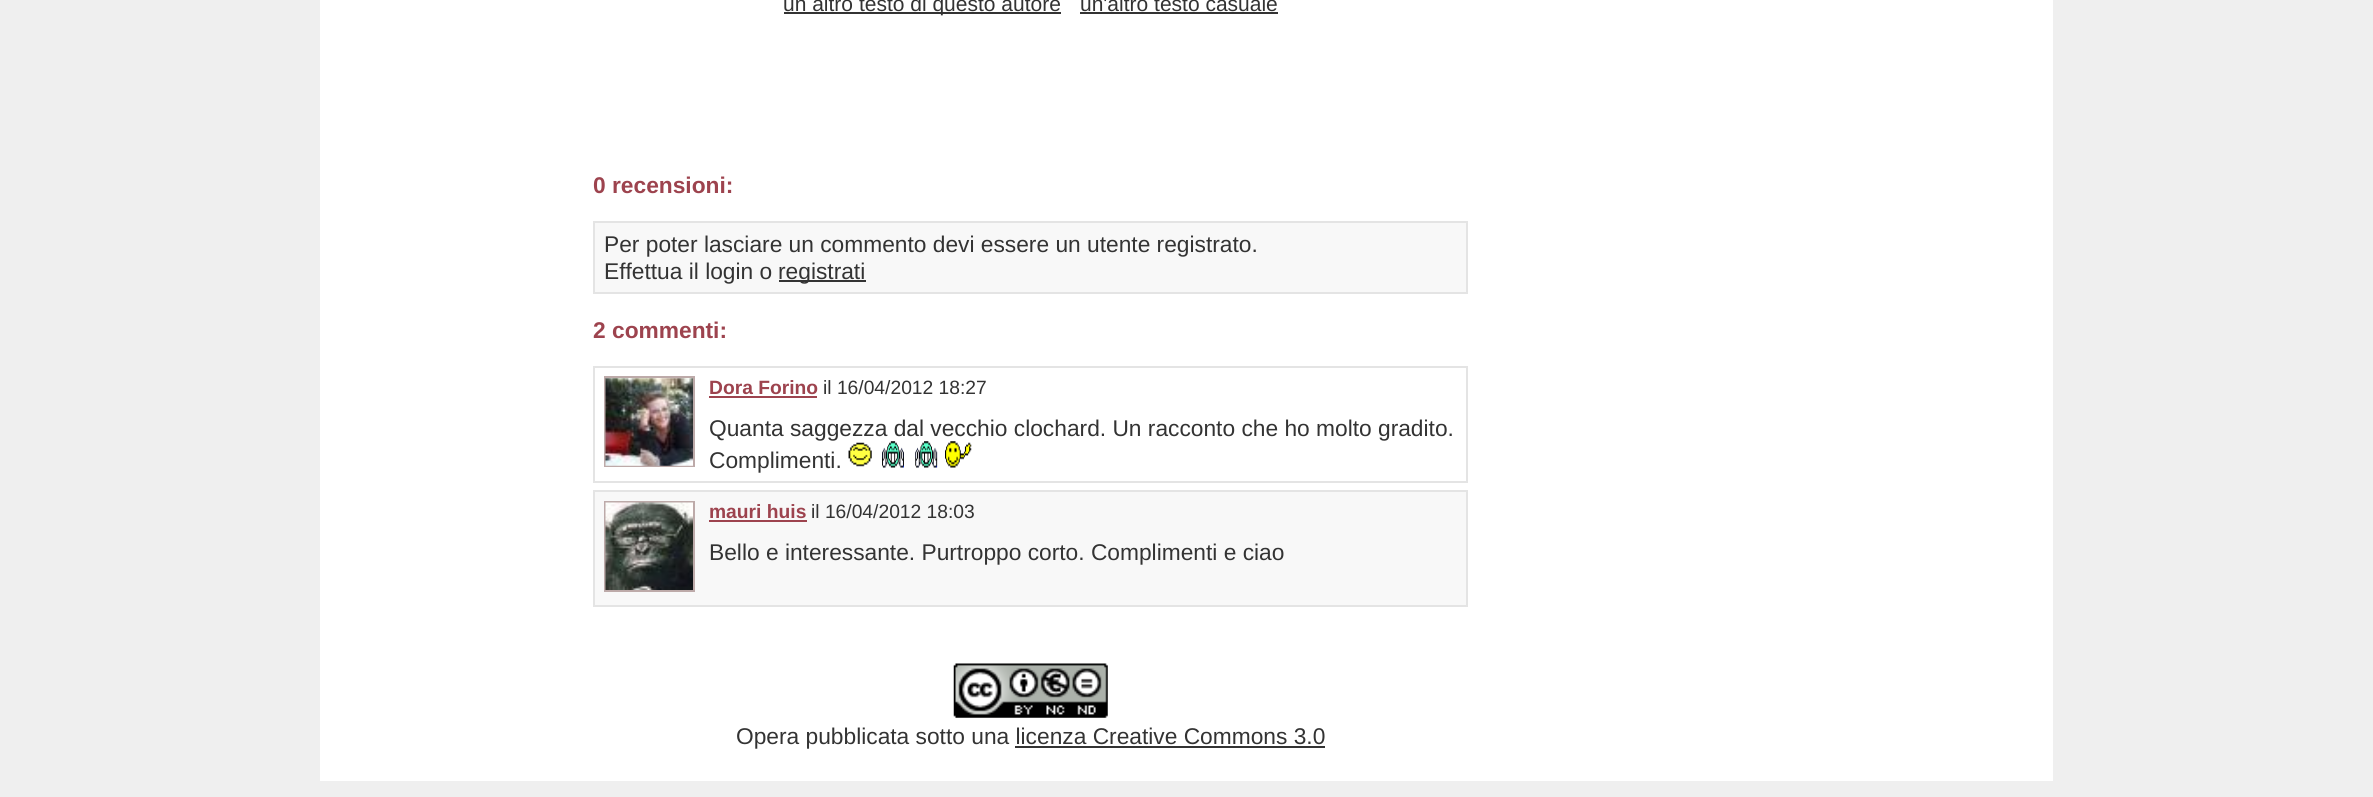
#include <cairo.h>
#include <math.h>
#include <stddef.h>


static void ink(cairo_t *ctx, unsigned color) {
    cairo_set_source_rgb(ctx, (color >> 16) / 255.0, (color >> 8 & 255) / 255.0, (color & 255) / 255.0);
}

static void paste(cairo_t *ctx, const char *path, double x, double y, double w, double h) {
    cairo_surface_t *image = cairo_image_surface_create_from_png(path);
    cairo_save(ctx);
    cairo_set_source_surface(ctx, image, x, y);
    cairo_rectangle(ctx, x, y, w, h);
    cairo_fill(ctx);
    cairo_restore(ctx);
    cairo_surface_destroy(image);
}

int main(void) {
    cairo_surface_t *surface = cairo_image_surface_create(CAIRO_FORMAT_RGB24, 2373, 797);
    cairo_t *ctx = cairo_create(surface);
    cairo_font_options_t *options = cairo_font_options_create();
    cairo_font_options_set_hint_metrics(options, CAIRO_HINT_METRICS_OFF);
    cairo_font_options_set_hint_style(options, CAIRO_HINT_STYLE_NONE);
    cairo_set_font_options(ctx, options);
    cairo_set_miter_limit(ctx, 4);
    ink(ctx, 0xEFEFEF);
    cairo_paint(ctx);
    ink(ctx, 0xFFFFFF);
    cairo_rectangle(ctx, 320, 0, 1733, 781);
    cairo_fill(ctx);
    ink(ctx, 0x333333);
    cairo_rectangle(ctx, 784, 12, 277, 2);
    cairo_fill(ctx);
    cairo_select_font_face(ctx, "Liberation Sans", CAIRO_FONT_SLANT_NORMAL, CAIRO_FONT_WEIGHT_NORMAL);
    cairo_set_font_size(ctx, 21);
    cairo_move_to(ctx, 783, 11);
    cairo_show_text(ctx, "un altro testo di questo autore");
    cairo_move_to(ctx, 1080, 11);
    cairo_show_text(ctx, "un'altro testo casuale");
    cairo_rectangle(ctx, 1080, 12, 198, 2);
    cairo_fill(ctx);
    cairo_select_font_face(ctx, "Liberation Sans", CAIRO_FONT_SLANT_NORMAL, CAIRO_FONT_WEIGHT_BOLD);
    cairo_set_font_size(ctx, 22.75);
    ink(ctx, 0x9D434E);
    cairo_move_to(ctx, 593, 193);
    cairo_show_text(ctx, "0 recensioni:");
    ink(ctx, 0xF8F8F8);
    cairo_rectangle(ctx, 594, 222, 873, 71);
    cairo_fill_preserve(ctx);
    ink(ctx, 0xE4E4E4);
    cairo_stroke(ctx);
    cairo_select_font_face(ctx, "Liberation Sans", CAIRO_FONT_SLANT_NORMAL, CAIRO_FONT_WEIGHT_NORMAL);
    ink(ctx, 0x333333);
    cairo_move_to(ctx, 604, 252);
    cairo_show_text(ctx, "Per poter lasciare un commento devi essere un utente registrato.");
    cairo_move_to(ctx, 604, 279);
    cairo_show_text(ctx, "Effettua il login o");
    cairo_rectangle(ctx, 779, 280, 87, 2);
    cairo_fill(ctx);
    cairo_move_to(ctx, 778, 279);
    cairo_show_text(ctx, "registrati");
    cairo_select_font_face(ctx, "Liberation Sans", CAIRO_FONT_SLANT_NORMAL, CAIRO_FONT_WEIGHT_BOLD);
    ink(ctx, 0x9D434E);
    cairo_move_to(ctx, 593, 338);
    cairo_show_text(ctx, "2 commenti:");
    cairo_rectangle(ctx, 594, 367, 873, 115);
    ink(ctx, 0xE4E4E4);
    cairo_stroke(ctx);
    cairo_rectangle(ctx, 605, 377, 89, 89);
    ink(ctx, 0xBDAAA9);
    cairo_stroke(ctx);
    paste(ctx, "media/1.png", 605, 378, 88, 88);
    cairo_set_font_size(ctx, 19.25);
    ink(ctx, 0x9D434E);
    cairo_move_to(ctx, 709, 394);
    cairo_show_text(ctx, "Dora Forino");
    cairo_rectangle(ctx, 709, 396, 108, 2);
    cairo_fill(ctx);
    cairo_select_font_face(ctx, "Liberation Sans", CAIRO_FONT_SLANT_NORMAL, CAIRO_FONT_WEIGHT_NORMAL);
    ink(ctx, 0x333333);
    cairo_move_to(ctx, 823, 394);
    cairo_show_text(ctx, "il 16/04/2012 18:27");
    cairo_set_font_size(ctx, 22.75);
    cairo_move_to(ctx, 709, 436);
    cairo_show_text(ctx, "Quanta saggezza dal vecchio clochard. Un racconto che ho molto gradito.");
    cairo_move_to(ctx, 709, 468);
    cairo_show_text(ctx, "Complimenti.");
    paste(ctx, "media/2.png", 848, 442, 24, 25);
    paste(ctx, "media/3.png", 882, 441, 22, 27);
    paste(ctx, "media/4.png", 915, 441, 23, 27);
    paste(ctx, "media/5.png", 945, 441, 27, 27);
    ink(ctx, 0xF8F8F8);
    cairo_rectangle(ctx, 594, 491, 873, 115);
    cairo_fill_preserve(ctx);
    ink(ctx, 0xE4E4E4);
    cairo_stroke(ctx);
    cairo_rectangle(ctx, 605, 502, 89, 89);
    ink(ctx, 0xBDAAA9);
    cairo_stroke(ctx);
    paste(ctx, "media/6.png", 605, 502, 88, 88);
    cairo_select_font_face(ctx, "Liberation Sans", CAIRO_FONT_SLANT_NORMAL, CAIRO_FONT_WEIGHT_BOLD);
    cairo_set_font_size(ctx, 19.25);
    ink(ctx, 0x9D434E);
    cairo_move_to(ctx, 709, 518);
    cairo_show_text(ctx, "mauri huis");
    cairo_rectangle(ctx, 709, 520, 98, 2);
    cairo_fill(ctx);
    cairo_select_font_face(ctx, "Liberation Sans", CAIRO_FONT_SLANT_NORMAL, CAIRO_FONT_WEIGHT_NORMAL);
    ink(ctx, 0x333333);
    cairo_move_to(ctx, 811, 518);
    cairo_show_text(ctx, "il 16/04/2012 18:03");
    cairo_set_font_size(ctx, 22.75);
    cairo_move_to(ctx, 709, 560);
    cairo_show_text(ctx, "Bello e interessante. Purtroppo corto. Complimenti e ciao");
    paste(ctx, "media/7.png", 953, 663, 155, 55);
    cairo_move_to(ctx, 736, 744);
    cairo_show_text(ctx, "Opera pubblicata sotto una licenza Creative Commons 3.0");
    cairo_rectangle(ctx, 1015, 746, 310, 2);
    cairo_fill(ctx);
    cairo_surface_write_to_png(surface, "image.png");
    cairo_font_options_destroy(options);
    cairo_destroy(ctx);
    cairo_surface_destroy(surface);
    return 0;
}
